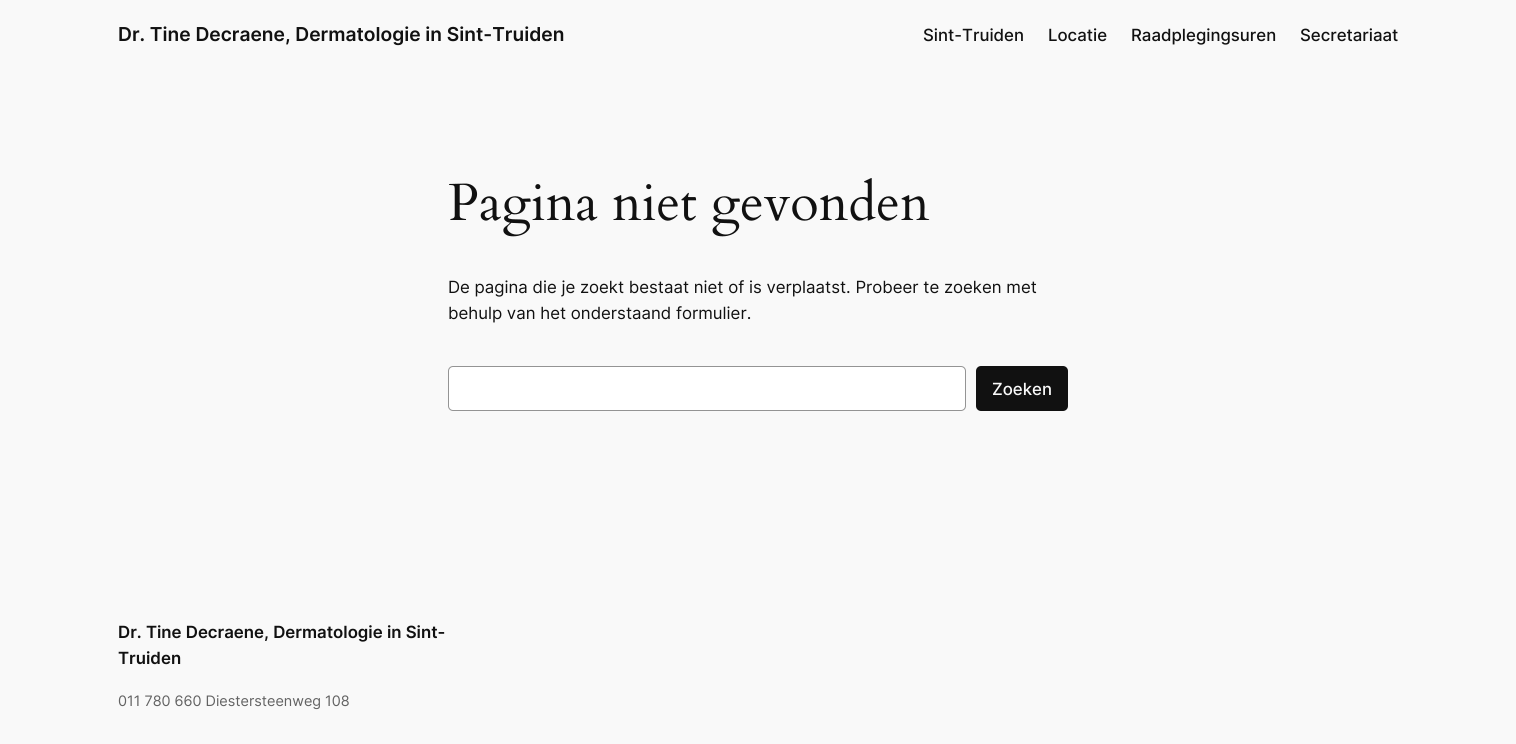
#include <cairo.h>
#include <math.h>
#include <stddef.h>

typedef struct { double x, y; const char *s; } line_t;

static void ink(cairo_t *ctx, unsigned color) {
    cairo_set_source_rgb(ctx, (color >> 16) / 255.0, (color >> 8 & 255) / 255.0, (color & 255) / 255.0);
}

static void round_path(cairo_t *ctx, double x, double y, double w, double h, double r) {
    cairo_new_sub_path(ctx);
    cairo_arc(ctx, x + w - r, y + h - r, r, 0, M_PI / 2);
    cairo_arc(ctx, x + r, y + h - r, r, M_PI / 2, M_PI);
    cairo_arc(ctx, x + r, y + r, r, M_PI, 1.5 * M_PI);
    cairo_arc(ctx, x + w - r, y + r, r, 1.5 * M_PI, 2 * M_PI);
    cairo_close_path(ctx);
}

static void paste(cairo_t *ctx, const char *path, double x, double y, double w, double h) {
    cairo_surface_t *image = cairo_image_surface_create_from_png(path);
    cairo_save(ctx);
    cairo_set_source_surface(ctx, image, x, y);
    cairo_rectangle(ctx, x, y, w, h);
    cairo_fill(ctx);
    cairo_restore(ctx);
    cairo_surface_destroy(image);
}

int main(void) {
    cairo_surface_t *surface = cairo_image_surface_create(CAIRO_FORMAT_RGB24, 1516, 744);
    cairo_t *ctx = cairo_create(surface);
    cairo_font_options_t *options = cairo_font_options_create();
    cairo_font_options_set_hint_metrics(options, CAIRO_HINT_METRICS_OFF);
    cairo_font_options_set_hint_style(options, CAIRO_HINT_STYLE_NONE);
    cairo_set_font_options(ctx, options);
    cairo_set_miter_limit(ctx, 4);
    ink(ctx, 0xF9F9F9);
    cairo_paint(ctx);
    cairo_select_font_face(ctx, "Inter SemiBold", CAIRO_FONT_SLANT_NORMAL, CAIRO_FONT_WEIGHT_NORMAL);
    cairo_set_font_size(ctx, 19.2);
    ink(ctx, 0x111111);
    cairo_move_to(ctx, 118, 41);
    cairo_show_text(ctx, "Dr. Tine Decraene, Dermatologie in Sint-Truiden");
    cairo_select_font_face(ctx, "Inter Medium", CAIRO_FONT_SLANT_NORMAL, CAIRO_FONT_WEIGHT_NORMAL);
    cairo_set_font_size(ctx, 16.8);
    {
        static const line_t items[] = {
            {923, 41, "Sint-Truiden"},
            {1048, 41, "Locatie"},
            {1131, 41, "Raadplegingsuren"},
            {1300, 41, "Secretariaat"},
        };
        for (size_t i = 0; i < sizeof items / sizeof *items; i++) {
            cairo_move_to(ctx, items[i].x, items[i].y);
            cairo_show_text(ctx, items[i].s);
        }
    }
    paste(ctx, "media/1.png", 449, 178, 481, 59);
    cairo_select_font_face(ctx, "Inter", CAIRO_FONT_SLANT_NORMAL, CAIRO_FONT_WEIGHT_NORMAL);
    cairo_move_to(ctx, 448, 293);
    cairo_show_text(ctx, "De pagina die je zoekt bestaat niet of is verplaatst. Probeer te zoeken met");
    cairo_move_to(ctx, 448, 319);
    cairo_show_text(ctx, "behulp van het onderstaand formulier.");
    ink(ctx, 0xFFFFFF);
    round_path(ctx, 448.5, 366.5, 517, 44, 4.5);
    cairo_fill_preserve(ctx);
    ink(ctx, 0x949494);
    cairo_set_line_width(ctx, 1);
    cairo_stroke(ctx);
    ink(ctx, 0x111111);
    round_path(ctx, 976, 366, 92, 45, 5);
    cairo_fill(ctx);
    cairo_select_font_face(ctx, "Inter Medium", CAIRO_FONT_SLANT_NORMAL, CAIRO_FONT_WEIGHT_NORMAL);
    ink(ctx, 0xF9F9F9);
    cairo_move_to(ctx, 992, 395);
    cairo_show_text(ctx, "Zoeken");
    cairo_select_font_face(ctx, "Inter SemiBold", CAIRO_FONT_SLANT_NORMAL, CAIRO_FONT_WEIGHT_NORMAL);
    ink(ctx, 0x111111);
    cairo_move_to(ctx, 118, 638);
    cairo_show_text(ctx, "Dr. Tine Decraene, Dermatologie in Sint-");
    cairo_move_to(ctx, 118, 664);
    cairo_show_text(ctx, "Truiden");
    cairo_select_font_face(ctx, "Inter", CAIRO_FONT_SLANT_NORMAL, CAIRO_FONT_WEIGHT_NORMAL);
    cairo_set_font_size(ctx, 14.4);
    ink(ctx, 0x636363);
    cairo_move_to(ctx, 118, 706);
    cairo_show_text(ctx, "011 780 660 Diestersteenweg 108");
    cairo_surface_write_to_png(surface, "image.png");
    cairo_font_options_destroy(options);
    cairo_destroy(ctx);
    cairo_surface_destroy(surface);
    return 0;
}
